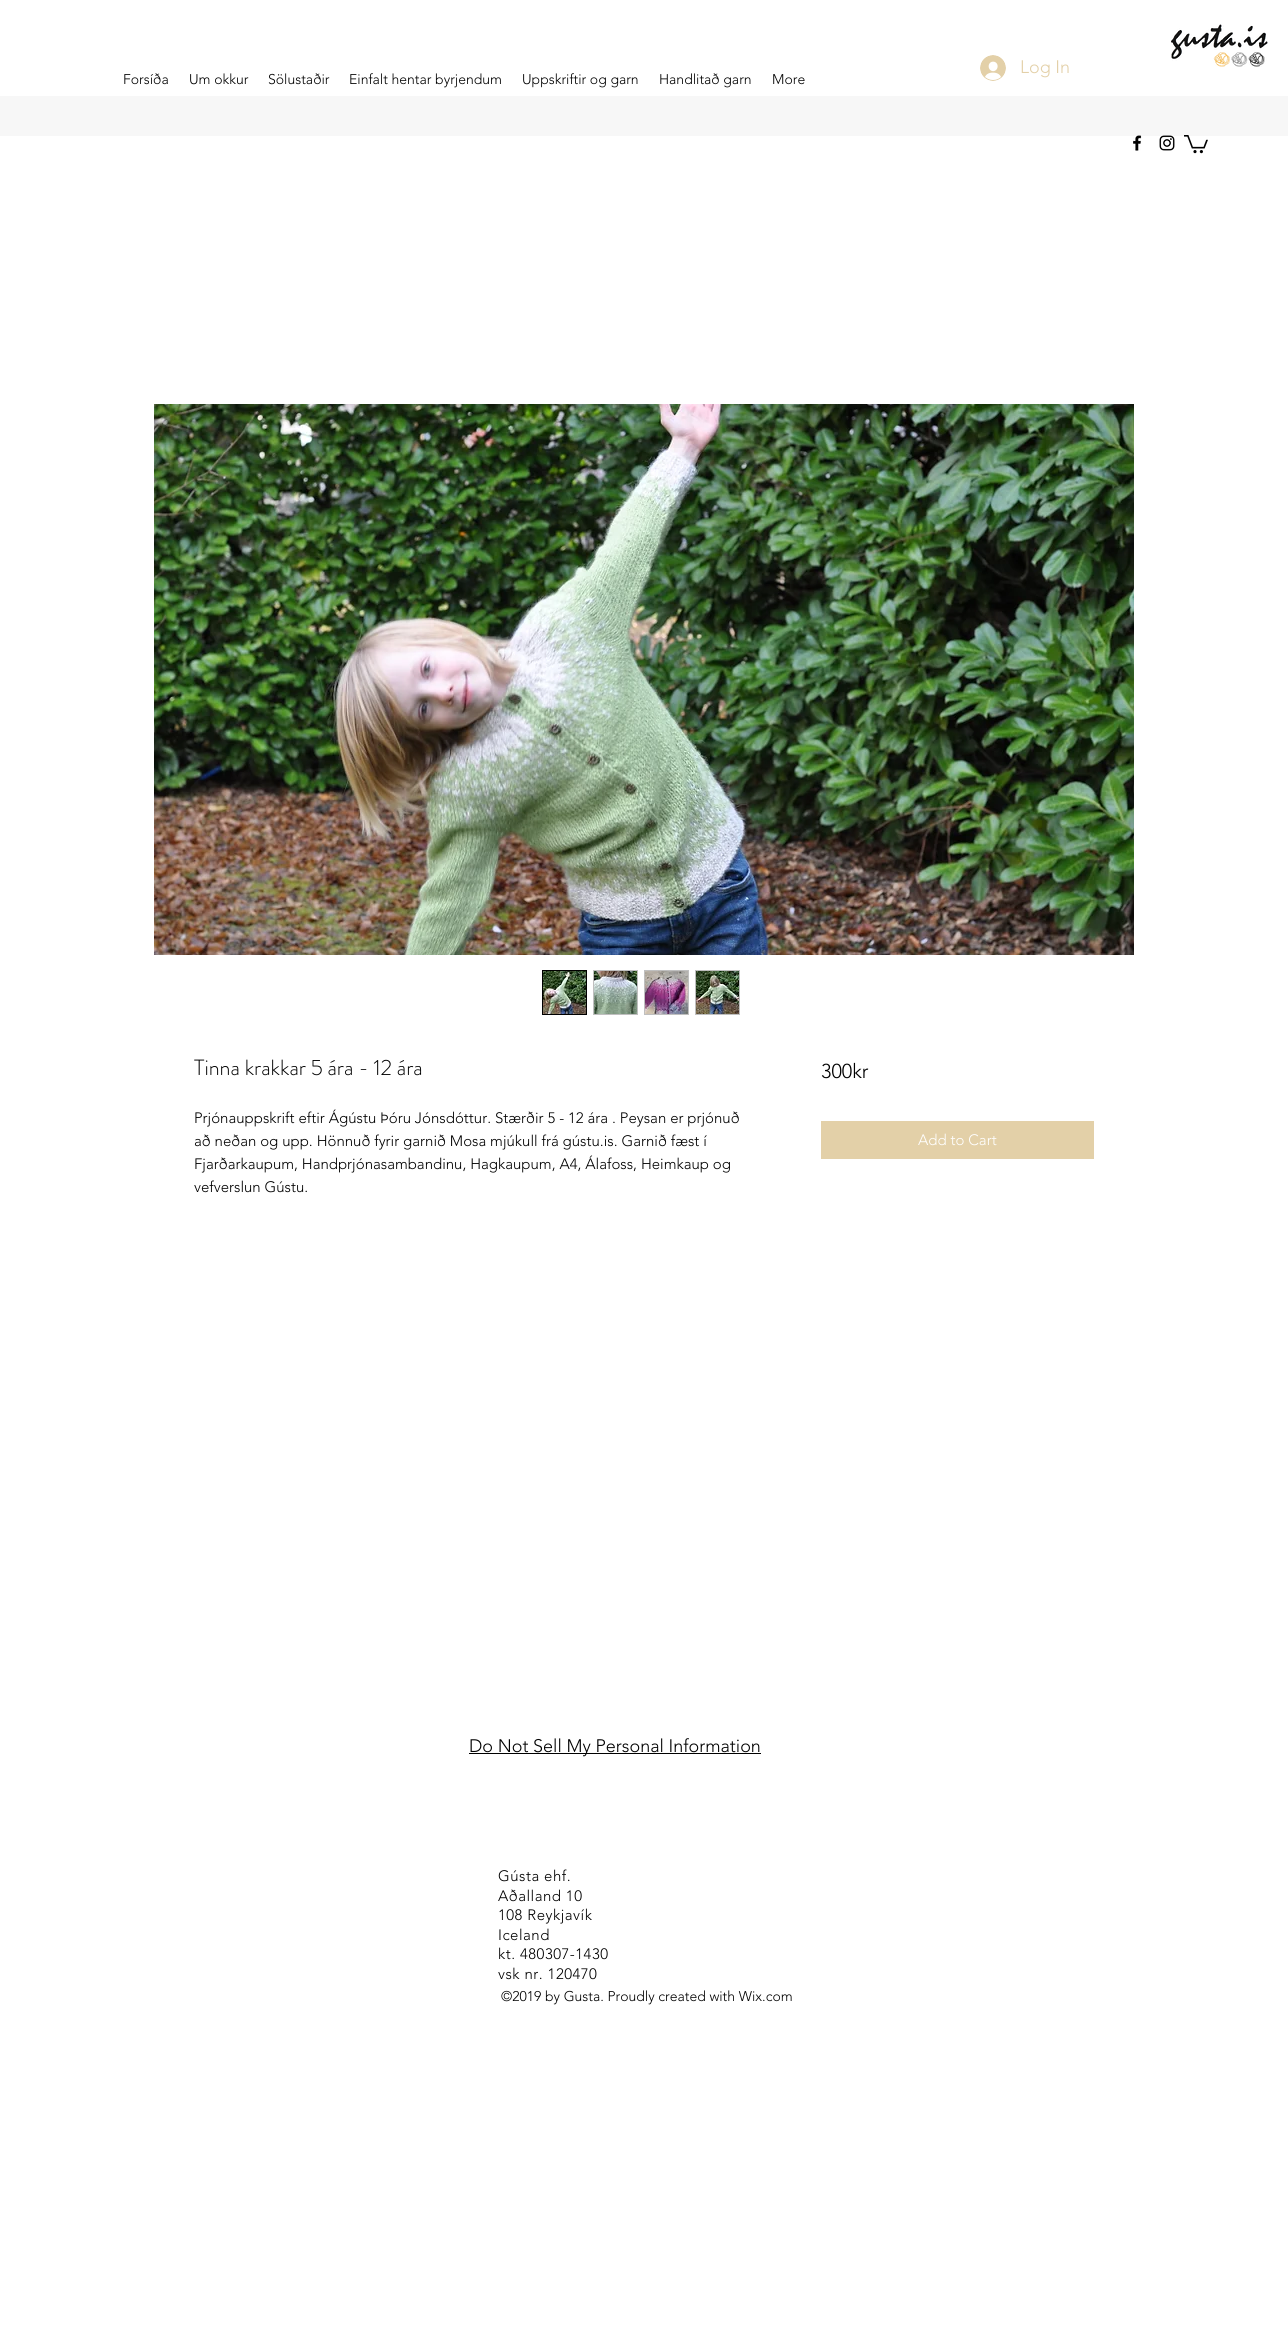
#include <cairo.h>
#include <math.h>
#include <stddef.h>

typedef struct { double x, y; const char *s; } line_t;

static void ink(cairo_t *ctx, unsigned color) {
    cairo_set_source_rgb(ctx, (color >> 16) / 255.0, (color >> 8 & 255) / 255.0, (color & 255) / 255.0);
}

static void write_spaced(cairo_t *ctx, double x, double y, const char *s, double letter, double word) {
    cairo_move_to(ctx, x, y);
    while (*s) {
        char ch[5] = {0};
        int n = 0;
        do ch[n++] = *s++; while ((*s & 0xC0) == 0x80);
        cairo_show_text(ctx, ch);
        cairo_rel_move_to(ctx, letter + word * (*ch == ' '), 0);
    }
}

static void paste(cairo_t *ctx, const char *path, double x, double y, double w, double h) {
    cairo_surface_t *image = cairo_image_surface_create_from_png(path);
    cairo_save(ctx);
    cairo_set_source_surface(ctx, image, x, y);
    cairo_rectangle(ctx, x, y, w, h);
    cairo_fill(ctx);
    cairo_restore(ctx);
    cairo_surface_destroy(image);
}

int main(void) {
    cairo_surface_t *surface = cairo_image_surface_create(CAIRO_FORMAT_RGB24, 1288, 2339);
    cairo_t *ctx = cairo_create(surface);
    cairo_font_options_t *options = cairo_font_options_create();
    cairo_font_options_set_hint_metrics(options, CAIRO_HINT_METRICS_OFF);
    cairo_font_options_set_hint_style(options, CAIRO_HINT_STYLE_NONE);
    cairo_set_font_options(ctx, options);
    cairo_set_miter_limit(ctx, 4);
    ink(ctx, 0xFFFFFF);
    cairo_paint(ctx);
    paste(ctx, "media/1.png", 1171, 24, 97, 43);
    paste(ctx, "media/2.png", 980, 55, 26, 26);
    cairo_select_font_face(ctx, "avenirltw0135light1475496 Light", CAIRO_FONT_SLANT_NORMAL, CAIRO_FONT_WEIGHT_NORMAL);
    cairo_set_font_size(ctx, 18);
    ink(ctx, 0xE3D0A8);
    cairo_move_to(ctx, 1020, 73);
    cairo_show_text(ctx, "Log In");
    cairo_set_font_size(ctx, 14);
    ink(ctx, 0x000000);
    {
        static const line_t items[] = {
            {123, 84, "Forsíða"},
            {189, 84, "Um okkur"},
            {268, 84, "Sölustaðir"},
            {349, 84, "Einfalt hentar byrjendum"},
            {522, 84, "Uppskriftir og garn"},
            {659, 84, "Handlitað garn"},
            {772, 84, "More"},
        };
        for (size_t i = 0; i < sizeof items / sizeof *items; i++) {
            cairo_move_to(ctx, items[i].x, items[i].y);
            cairo_show_text(ctx, items[i].s);
        }
    }
    ink(ctx, 0xF7F7F7);
    cairo_rectangle(ctx, 0, 96, 1288, 40);
    cairo_fill(ctx);
    paste(ctx, "media/3.png", 1133, 135, 9, 16);
    paste(ctx, "media/4.png", 1159, 135, 16, 16);
    paste(ctx, "media/5.png", 1184, 135, 24, 19);
    paste(ctx, "media/6.png", 154, 404, 980, 551);
    cairo_rectangle(ctx, 542.5, 970.5, 44, 44);
    ink(ctx, 0x000000);
    cairo_set_line_width(ctx, 1);
    cairo_stroke(ctx);
    paste(ctx, "media/7.png", 543, 971, 43, 43);
    cairo_rectangle(ctx, 593.5, 970.5, 44, 44);
    ink(ctx, 0xBFBFBF);
    cairo_stroke(ctx);
    paste(ctx, "media/8.png", 594, 971, 43, 43);
    cairo_rectangle(ctx, 644.5, 970.5, 44, 44);
    cairo_stroke(ctx);
    paste(ctx, "media/9.png", 645, 971, 43, 43);
    cairo_rectangle(ctx, 695.5, 970.5, 44, 44);
    cairo_stroke(ctx);
    paste(ctx, "media/10.png", 696, 971, 43, 43);
    cairo_select_font_face(ctx, "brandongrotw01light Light", CAIRO_FONT_SLANT_NORMAL, CAIRO_FONT_WEIGHT_NORMAL);
    cairo_set_font_size(ctx, 22);
    ink(ctx, 0x000000);
    cairo_move_to(ctx, 194, 1075);
    cairo_show_text(ctx, "Tinna krakkar 5 ára - 12 ára");
    cairo_select_font_face(ctx, "avenirltw0135light1475496 Light", CAIRO_FONT_SLANT_NORMAL, CAIRO_FONT_WEIGHT_NORMAL);
    cairo_set_font_size(ctx, 15);
    {
        static const line_t items[] = {
            {194, 1123, "Prjónauppskrift eftir Ágústu Þóru Jónsdóttur. Stærðir 5 - 12 ára . Peysan er prjónuð"},
            {194, 1146, "að neðan og upp. Hönnuð fyrir garnið Mosa mjúkull frá gústu.is. Garnið fæst í"},
            {194, 1169, "Fjarðarkaupum, Handprjónasambandinu, Hagkaupum, A4, Álafoss, Heimkaup og"},
            {194, 1192, "vefverslun Gústu."},
        };
        for (size_t i = 0; i < sizeof items / sizeof *items; i++) {
            cairo_move_to(ctx, items[i].x, items[i].y);
            cairo_show_text(ctx, items[i].s);
        }
    }
    cairo_set_font_size(ctx, 20);
    cairo_move_to(ctx, 821, 1078);
    cairo_show_text(ctx, "300kr");
    ink(ctx, 0xE3D0A8);
    cairo_rectangle(ctx, 821, 1121, 273, 38);
    cairo_fill(ctx);
    cairo_set_font_size(ctx, 15);
    ink(ctx, 0xFFFFFF);
    cairo_move_to(ctx, 918, 1145);
    cairo_show_text(ctx, "Add to Cart");
    ink(ctx, 0x000000);
    cairo_rectangle(ctx, 469, 1753, 292, 1);
    cairo_fill(ctx);
    cairo_set_font_size(ctx, 18);
    cairo_move_to(ctx, 469, 1752);
    cairo_show_text(ctx, "Do Not Sell My Personal Information");
    cairo_set_font_size(ctx, 15);
    {
        static const line_t items[] = {
            {498, 1881, "Gústa ehf."},
            {498, 1901, "Aðalland 10"},
            {498, 1920, "108 Reykjavík"},
            {498, 1940, "Iceland"},
            {498, 1959, "kt. 480307-1430"},
            {498, 1979, "vsk nr. 120470"},
        };
        for (size_t i = 0; i < sizeof items / sizeof *items; i++) {
            write_spaced(ctx, items[i].x, items[i].y, items[i].s, 0.5, 0);
        }
    }
    cairo_set_font_size(ctx, 14);
    cairo_move_to(ctx, 501, 2001);
    cairo_show_text(ctx, "©2019 by Gusta. Proudly created with Wix.com");
    cairo_surface_write_to_png(surface, "image.png");
    cairo_font_options_destroy(options);
    cairo_destroy(ctx);
    cairo_surface_destroy(surface);
    return 0;
}
